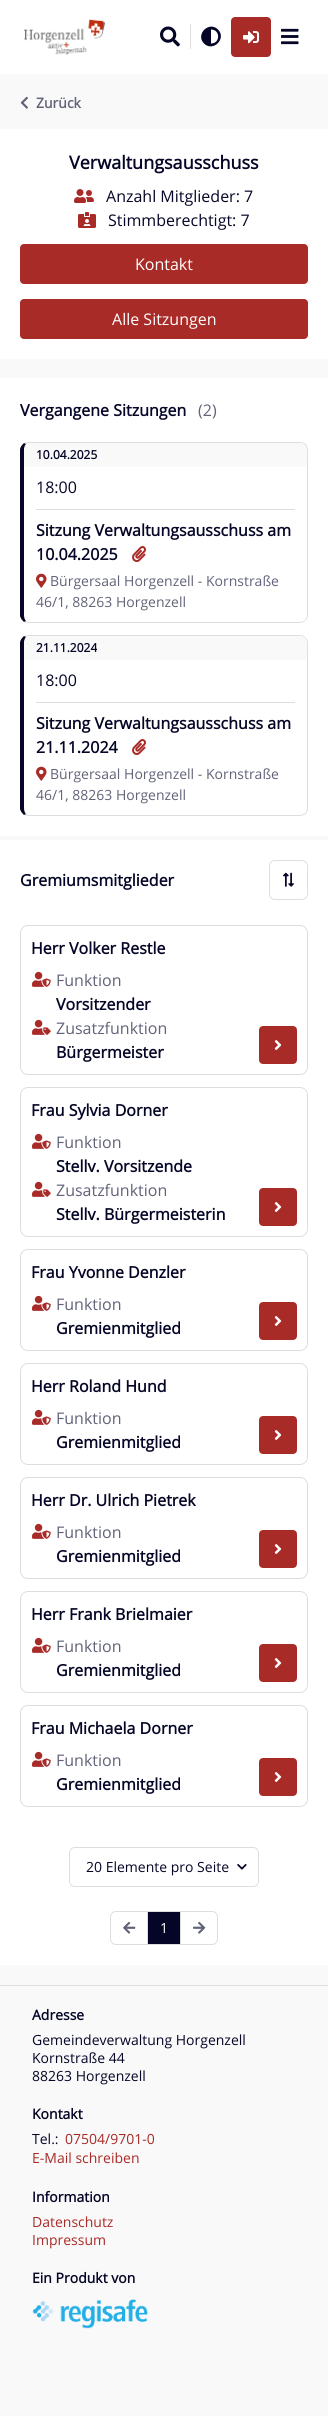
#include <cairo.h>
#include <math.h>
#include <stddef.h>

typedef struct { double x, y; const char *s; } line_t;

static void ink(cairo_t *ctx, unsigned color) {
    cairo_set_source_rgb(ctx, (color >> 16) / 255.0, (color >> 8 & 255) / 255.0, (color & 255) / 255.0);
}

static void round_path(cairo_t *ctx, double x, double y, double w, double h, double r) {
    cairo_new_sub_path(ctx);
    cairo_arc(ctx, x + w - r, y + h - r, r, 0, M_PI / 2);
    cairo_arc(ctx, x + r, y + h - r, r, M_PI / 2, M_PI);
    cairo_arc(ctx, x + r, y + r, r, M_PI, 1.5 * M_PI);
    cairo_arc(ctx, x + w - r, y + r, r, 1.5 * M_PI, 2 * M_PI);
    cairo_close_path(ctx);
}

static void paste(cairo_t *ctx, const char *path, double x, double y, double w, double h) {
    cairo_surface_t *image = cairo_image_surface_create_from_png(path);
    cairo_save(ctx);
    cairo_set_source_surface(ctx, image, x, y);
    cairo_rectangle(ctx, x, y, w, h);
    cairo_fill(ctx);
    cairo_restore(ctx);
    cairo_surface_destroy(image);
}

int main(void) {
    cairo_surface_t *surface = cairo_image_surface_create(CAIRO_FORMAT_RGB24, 328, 2417);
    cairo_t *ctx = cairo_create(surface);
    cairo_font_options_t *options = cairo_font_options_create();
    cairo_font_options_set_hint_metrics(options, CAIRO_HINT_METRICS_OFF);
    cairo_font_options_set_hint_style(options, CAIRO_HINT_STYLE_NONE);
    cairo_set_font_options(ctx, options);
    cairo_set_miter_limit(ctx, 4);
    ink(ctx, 0xFFFFFF);
    cairo_paint(ctx);
    paste(ctx, "media/1.png", 24, 19, 82, 36);
    ink(ctx, 0xDEDEDE);
    cairo_rectangle(ctx, 190, 24, 1, 25);
    cairo_fill(ctx);
    paste(ctx, "media/2.png", 160, 26, 20, 21);
    ink(ctx, 0x050627);
    cairo_new_path(ctx);
    cairo_move_to(ctx, 204, 43.5);
    cairo_curve_to(ctx, 195, 34.5, 209, 20.5, 218, 29.5);
    cairo_curve_to(ctx, 227, 38.5, 213, 52.5, 204, 43.5);
    cairo_close_path(ctx);
    cairo_move_to(ctx, 211, 43.5);
    cairo_curve_to(ctx, 220.5, 43.5, 220.5, 29.5, 211, 29.5);
    cairo_close_path(ctx);
    cairo_fill(ctx);
    ink(ctx, 0xA92B28);
    round_path(ctx, 232, 18, 38, 38, 3);
    cairo_fill_preserve(ctx);
    cairo_stroke(ctx);
    paste(ctx, "media/3.png", 243, 31, 16, 13);
    paste(ctx, "media/4.png", 281, 28, 18, 17);
    ink(ctx, 0xF9F9F9);
    cairo_rectangle(ctx, 0, 74, 328, 2342);
    cairo_fill(ctx);
    paste(ctx, "media/5.png", 20, 96, 8, 13);
    cairo_select_font_face(ctx, "Open Sans", CAIRO_FONT_SLANT_NORMAL, CAIRO_FONT_WEIGHT_BOLD);
    cairo_set_font_size(ctx, 14);
    ink(ctx, 0x616379);
    cairo_move_to(ctx, 36, 108);
    cairo_show_text(ctx, "Zurück");
    ink(ctx, 0xFFFFFF);
    cairo_rectangle(ctx, 0, 129, 328, 230);
    cairo_fill(ctx);
    cairo_set_font_size(ctx, 18);
    ink(ctx, 0x050627);
    cairo_move_to(ctx, 69, 169);
    cairo_show_text(ctx, "Verwaltungsausschuss");
    paste(ctx, "media/6.png", 74, 189, 20, 14);
    cairo_select_font_face(ctx, "Open Sans", CAIRO_FONT_SLANT_NORMAL, CAIRO_FONT_WEIGHT_NORMAL);
    cairo_set_font_size(ctx, 16);
    cairo_move_to(ctx, 106, 202);
    cairo_show_text(ctx, "Anzahl Mitglieder: 7");
    paste(ctx, "media/7.png", 78, 212, 18, 16);
    cairo_move_to(ctx, 108, 226);
    cairo_show_text(ctx, "Stimmberechtigt: 7");
    ink(ctx, 0xA92B28);
    round_path(ctx, 20, 244, 288, 40, 4);
    cairo_fill(ctx);
    ink(ctx, 0xFFFFFF);
    cairo_move_to(ctx, 135, 270);
    cairo_show_text(ctx, "Kontakt");
    ink(ctx, 0xA92B28);
    round_path(ctx, 20, 299, 288, 40, 4);
    cairo_fill(ctx);
    ink(ctx, 0xFFFFFF);
    cairo_move_to(ctx, 112, 325);
    cairo_show_text(ctx, "Alle Sitzungen");
    cairo_rectangle(ctx, 0, 378, 328, 458);
    cairo_fill(ctx);
    cairo_select_font_face(ctx, "Open Sans", CAIRO_FONT_SLANT_NORMAL, CAIRO_FONT_WEIGHT_BOLD);
    ink(ctx, 0x050627);
    cairo_move_to(ctx, 20, 416);
    cairo_show_text(ctx, "Vergangene Sitzungen");
    cairo_select_font_face(ctx, "Open Sans", CAIRO_FONT_SLANT_NORMAL, CAIRO_FONT_WEIGHT_NORMAL);
    ink(ctx, 0x616379);
    cairo_move_to(ctx, 198, 416);
    cairo_show_text(ctx, "(2)");
    ink(ctx, 0xDEDEDE);
    cairo_new_path(ctx);
    cairo_move_to(ctx, 28, 442);
    cairo_line_to(ctx, 24, 443);
    cairo_line_to(ctx, 26, 444);
    cairo_line_to(ctx, 28, 443);
    cairo_line_to(ctx, 300, 443);
    cairo_curve_to(ctx, 302, 443, 304, 444, 305, 445);
    cairo_line_to(ctx, 306, 444);
    cairo_curve_to(ctx, 304, 443, 302, 442, 300, 442);
    cairo_close_path(ctx);
    cairo_fill(ctx);
    cairo_new_path(ctx);
    cairo_move_to(ctx, 308, 615);
    cairo_line_to(ctx, 308, 450);
    cairo_curve_to(ctx, 308, 448, 307, 446, 306, 444);
    cairo_line_to(ctx, 305, 445);
    cairo_curve_to(ctx, 306, 446, 307, 448, 307, 450);
    cairo_line_to(ctx, 307, 615);
    cairo_curve_to(ctx, 307, 617, 306, 619, 305, 620);
    cairo_line_to(ctx, 306, 620);
    cairo_curve_to(ctx, 307, 619, 308, 617, 308, 615);
    cairo_close_path(ctx);
    cairo_fill(ctx);
    cairo_new_path(ctx);
    cairo_move_to(ctx, 28, 623);
    cairo_line_to(ctx, 300, 623);
    cairo_curve_to(ctx, 302, 623, 304, 622, 306, 620);
    cairo_line_to(ctx, 305, 620);
    cairo_curve_to(ctx, 304, 621, 302, 622, 300, 622);
    cairo_line_to(ctx, 28, 622);
    cairo_line_to(ctx, 26, 621);
    cairo_line_to(ctx, 24, 622);
    cairo_close_path(ctx);
    cairo_fill(ctx);
    ink(ctx, 0x050627);
    cairo_new_path(ctx);
    cairo_move_to(ctx, 20, 450);
    cairo_line_to(ctx, 20, 615);
    cairo_curve_to(ctx, 20, 618, 22, 620, 24, 622);
    cairo_line_to(ctx, 26, 621);
    cairo_curve_to(ctx, 25, 620, 24, 618, 24, 615);
    cairo_line_to(ctx, 24, 450);
    cairo_curve_to(ctx, 24, 447, 25, 445, 26, 444);
    cairo_line_to(ctx, 24, 443);
    cairo_curve_to(ctx, 22, 445, 20, 447, 20, 450);
    cairo_close_path(ctx);
    cairo_fill(ctx);
    ink(ctx, 0xF9F9F9);
    cairo_new_path(ctx);
    cairo_move_to(ctx, 32, 443);
    cairo_line_to(ctx, 299, 443);
    cairo_curve_to(ctx, 303.5, 443, 307, 446.5, 307, 451);
    cairo_line_to(ctx, 307, 467);
    cairo_line_to(ctx, 24, 467);
    cairo_line_to(ctx, 24, 451);
    cairo_curve_to(ctx, 24, 446.5, 27.5, 443, 32, 443);
    cairo_close_path(ctx);
    cairo_fill(ctx);
    cairo_select_font_face(ctx, "Open Sans", CAIRO_FONT_SLANT_NORMAL, CAIRO_FONT_WEIGHT_BOLD);
    cairo_set_font_size(ctx, 12);
    ink(ctx, 0x050627);
    cairo_move_to(ctx, 36, 459);
    cairo_show_text(ctx, "10.04.2025");
    cairo_select_font_face(ctx, "Open Sans", CAIRO_FONT_SLANT_NORMAL, CAIRO_FONT_WEIGHT_NORMAL);
    cairo_set_font_size(ctx, 16);
    cairo_move_to(ctx, 36, 493);
    cairo_show_text(ctx, "18:00");
    ink(ctx, 0xDEDEDE);
    cairo_rectangle(ctx, 36, 509, 259, 1);
    cairo_fill(ctx);
    cairo_select_font_face(ctx, "Open Sans", CAIRO_FONT_SLANT_NORMAL, CAIRO_FONT_WEIGHT_BOLD);
    ink(ctx, 0x050627);
    cairo_move_to(ctx, 36, 536);
    cairo_show_text(ctx, "Sitzung Verwaltungsausschuss am");
    cairo_move_to(ctx, 36, 560);
    cairo_show_text(ctx, "10.04.2025");
    paste(ctx, "media/8.png", 132, 546, 14, 16);
    paste(ctx, "media/9.png", 36, 573, 11, 15);
    cairo_select_font_face(ctx, "Open Sans", CAIRO_FONT_SLANT_NORMAL, CAIRO_FONT_WEIGHT_NORMAL);
    cairo_set_font_size(ctx, 14);
    ink(ctx, 0x616379);
    cairo_move_to(ctx, 50, 586);
    cairo_show_text(ctx, "Bürgersaal Horgenzell - Kornstraße");
    cairo_move_to(ctx, 36, 607);
    cairo_show_text(ctx, "46/1, 88263 Horgenzell");
    ink(ctx, 0xDEDEDE);
    cairo_new_path(ctx);
    cairo_move_to(ctx, 28, 635);
    cairo_line_to(ctx, 24, 636);
    cairo_line_to(ctx, 26, 637);
    cairo_line_to(ctx, 28, 636);
    cairo_line_to(ctx, 300, 636);
    cairo_curve_to(ctx, 302, 636, 304, 637, 305, 638);
    cairo_line_to(ctx, 306, 638);
    cairo_curve_to(ctx, 304, 636, 302, 635, 300, 635);
    cairo_close_path(ctx);
    cairo_fill(ctx);
    cairo_new_path(ctx);
    cairo_move_to(ctx, 308, 808);
    cairo_line_to(ctx, 308, 643);
    cairo_curve_to(ctx, 308, 641, 307, 639, 306, 638);
    cairo_line_to(ctx, 305, 638);
    cairo_curve_to(ctx, 306, 639, 307, 641, 307, 643);
    cairo_line_to(ctx, 307, 808);
    cairo_curve_to(ctx, 307, 810, 306, 812, 305, 813);
    cairo_line_to(ctx, 306, 814);
    cairo_curve_to(ctx, 307, 812, 308, 810, 308, 808);
    cairo_close_path(ctx);
    cairo_fill(ctx);
    cairo_new_path(ctx);
    cairo_move_to(ctx, 28, 816);
    cairo_line_to(ctx, 300, 816);
    cairo_curve_to(ctx, 302, 816, 304, 815, 306, 814);
    cairo_line_to(ctx, 305, 813);
    cairo_curve_to(ctx, 304, 814, 302, 815, 300, 815);
    cairo_line_to(ctx, 28, 815);
    cairo_line_to(ctx, 26, 814);
    cairo_line_to(ctx, 24, 815);
    cairo_close_path(ctx);
    cairo_fill(ctx);
    ink(ctx, 0x050627);
    cairo_new_path(ctx);
    cairo_move_to(ctx, 20, 643);
    cairo_line_to(ctx, 20, 808);
    cairo_curve_to(ctx, 20, 811, 22, 813, 24, 815);
    cairo_line_to(ctx, 26, 814);
    cairo_curve_to(ctx, 25, 813, 24, 811, 24, 808);
    cairo_line_to(ctx, 24, 643);
    cairo_curve_to(ctx, 24, 640, 25, 638, 26, 637);
    cairo_line_to(ctx, 24, 636);
    cairo_curve_to(ctx, 22, 638, 20, 640, 20, 643);
    cairo_close_path(ctx);
    cairo_fill(ctx);
    ink(ctx, 0xF9F9F9);
    cairo_new_path(ctx);
    cairo_move_to(ctx, 32, 636);
    cairo_line_to(ctx, 299, 636);
    cairo_curve_to(ctx, 303.5, 636, 307, 639.5, 307, 644);
    cairo_line_to(ctx, 307, 660);
    cairo_line_to(ctx, 24, 660);
    cairo_line_to(ctx, 24, 644);
    cairo_curve_to(ctx, 24, 639.5, 27.5, 636, 32, 636);
    cairo_close_path(ctx);
    cairo_fill(ctx);
    cairo_select_font_face(ctx, "Open Sans", CAIRO_FONT_SLANT_NORMAL, CAIRO_FONT_WEIGHT_BOLD);
    cairo_set_font_size(ctx, 12);
    ink(ctx, 0x050627);
    cairo_move_to(ctx, 36, 652);
    cairo_show_text(ctx, "21.11.2024");
    cairo_select_font_face(ctx, "Open Sans", CAIRO_FONT_SLANT_NORMAL, CAIRO_FONT_WEIGHT_NORMAL);
    cairo_set_font_size(ctx, 16);
    cairo_move_to(ctx, 36, 686);
    cairo_show_text(ctx, "18:00");
    ink(ctx, 0xDEDEDE);
    cairo_rectangle(ctx, 36, 702, 259, 1);
    cairo_fill(ctx);
    cairo_select_font_face(ctx, "Open Sans", CAIRO_FONT_SLANT_NORMAL, CAIRO_FONT_WEIGHT_BOLD);
    ink(ctx, 0x050627);
    cairo_move_to(ctx, 36, 729);
    cairo_show_text(ctx, "Sitzung Verwaltungsausschuss am");
    cairo_move_to(ctx, 36, 753);
    cairo_show_text(ctx, "21.11.2024");
    paste(ctx, "media/8.png", 132, 739, 14, 16);
    paste(ctx, "media/9.png", 36, 766, 11, 15);
    cairo_select_font_face(ctx, "Open Sans", CAIRO_FONT_SLANT_NORMAL, CAIRO_FONT_WEIGHT_NORMAL);
    cairo_set_font_size(ctx, 14);
    ink(ctx, 0x616379);
    cairo_move_to(ctx, 50, 779);
    cairo_show_text(ctx, "Bürgersaal Horgenzell - Kornstraße");
    cairo_move_to(ctx, 36, 800);
    cairo_show_text(ctx, "46/1, 88263 Horgenzell");
    ink(ctx, 0xFFFFFF);
    cairo_rectangle(ctx, 0, 840, 328, 1125);
    cairo_fill(ctx);
    cairo_select_font_face(ctx, "Open Sans", CAIRO_FONT_SLANT_NORMAL, CAIRO_FONT_WEIGHT_BOLD);
    cairo_set_font_size(ctx, 16);
    ink(ctx, 0x050627);
    cairo_move_to(ctx, 20, 886);
    cairo_show_text(ctx, "Gremiumsmitglieder");
    round_path(ctx, 269.5, 860.5, 38, 39, 5.5);
    ink(ctx, 0xDEDEDE);
    cairo_set_line_width(ctx, 1);
    cairo_stroke(ctx);
    paste(ctx, "media/10.png", 283, 872, 11, 15);
    round_path(ctx, 20.5, 925.5, 287, 149, 7.5);
    cairo_stroke(ctx);
    ink(ctx, 0x050627);
    cairo_move_to(ctx, 31, 954);
    cairo_show_text(ctx, "Herr Volker Restle");
    paste(ctx, "media/11.png", 32, 971, 19, 16);
    cairo_select_font_face(ctx, "Open Sans", CAIRO_FONT_SLANT_NORMAL, CAIRO_FONT_WEIGHT_NORMAL);
    ink(ctx, 0x616379);
    cairo_move_to(ctx, 56, 986);
    cairo_show_text(ctx, "Funktion");
    cairo_select_font_face(ctx, "Open Sans", CAIRO_FONT_SLANT_NORMAL, CAIRO_FONT_WEIGHT_BOLD);
    ink(ctx, 0x050627);
    cairo_move_to(ctx, 56, 1010);
    cairo_show_text(ctx, "Vorsitzender");
    paste(ctx, "media/12.png", 32, 1019, 19, 16);
    cairo_select_font_face(ctx, "Open Sans", CAIRO_FONT_SLANT_NORMAL, CAIRO_FONT_WEIGHT_NORMAL);
    ink(ctx, 0x616379);
    cairo_move_to(ctx, 56, 1034);
    cairo_show_text(ctx, "Zusatzfunktion");
    cairo_select_font_face(ctx, "Open Sans", CAIRO_FONT_SLANT_NORMAL, CAIRO_FONT_WEIGHT_BOLD);
    ink(ctx, 0x050627);
    cairo_move_to(ctx, 56, 1058);
    cairo_show_text(ctx, "Bürgermeister");
    ink(ctx, 0xA92B28);
    round_path(ctx, 260, 1027, 36, 36, 3);
    cairo_fill_preserve(ctx);
    cairo_set_line_width(ctx, 2);
    cairo_stroke(ctx);
    paste(ctx, "media/13.png", 274, 1040, 8, 10);
    round_path(ctx, 20.5, 1087.5, 287, 149, 7.5);
    ink(ctx, 0xDEDEDE);
    cairo_set_line_width(ctx, 1);
    cairo_stroke(ctx);
    ink(ctx, 0x050627);
    cairo_move_to(ctx, 31, 1116);
    cairo_show_text(ctx, "Frau Sylvia Dorner");
    paste(ctx, "media/11.png", 32, 1133, 19, 16);
    cairo_select_font_face(ctx, "Open Sans", CAIRO_FONT_SLANT_NORMAL, CAIRO_FONT_WEIGHT_NORMAL);
    ink(ctx, 0x616379);
    cairo_move_to(ctx, 56, 1148);
    cairo_show_text(ctx, "Funktion");
    cairo_select_font_face(ctx, "Open Sans", CAIRO_FONT_SLANT_NORMAL, CAIRO_FONT_WEIGHT_BOLD);
    ink(ctx, 0x050627);
    cairo_move_to(ctx, 56, 1172);
    cairo_show_text(ctx, "Stellv. Vorsitzende");
    paste(ctx, "media/12.png", 32, 1181, 19, 16);
    cairo_select_font_face(ctx, "Open Sans", CAIRO_FONT_SLANT_NORMAL, CAIRO_FONT_WEIGHT_NORMAL);
    ink(ctx, 0x616379);
    cairo_move_to(ctx, 56, 1196);
    cairo_show_text(ctx, "Zusatzfunktion");
    cairo_select_font_face(ctx, "Open Sans", CAIRO_FONT_SLANT_NORMAL, CAIRO_FONT_WEIGHT_BOLD);
    ink(ctx, 0x050627);
    cairo_move_to(ctx, 56, 1220);
    cairo_show_text(ctx, "Stellv. Bürgermeisterin");
    ink(ctx, 0xA92B28);
    round_path(ctx, 260, 1189, 36, 36, 3);
    cairo_fill_preserve(ctx);
    cairo_set_line_width(ctx, 2);
    cairo_stroke(ctx);
    paste(ctx, "media/13.png", 274, 1202, 8, 10);
    round_path(ctx, 20.5, 1249.5, 287, 101, 7.5);
    ink(ctx, 0xDEDEDE);
    cairo_set_line_width(ctx, 1);
    cairo_stroke(ctx);
    ink(ctx, 0x050627);
    cairo_move_to(ctx, 31, 1278);
    cairo_show_text(ctx, "Frau Yvonne Denzler");
    paste(ctx, "media/11.png", 32, 1295, 19, 16);
    cairo_select_font_face(ctx, "Open Sans", CAIRO_FONT_SLANT_NORMAL, CAIRO_FONT_WEIGHT_NORMAL);
    ink(ctx, 0x616379);
    cairo_move_to(ctx, 56, 1310);
    cairo_show_text(ctx, "Funktion");
    cairo_select_font_face(ctx, "Open Sans", CAIRO_FONT_SLANT_NORMAL, CAIRO_FONT_WEIGHT_BOLD);
    ink(ctx, 0x050627);
    cairo_move_to(ctx, 56, 1334);
    cairo_show_text(ctx, "Gremienmitglied");
    ink(ctx, 0xA92B28);
    round_path(ctx, 260, 1303, 36, 36, 3);
    cairo_fill_preserve(ctx);
    cairo_set_line_width(ctx, 2);
    cairo_stroke(ctx);
    paste(ctx, "media/13.png", 274, 1316, 8, 10);
    round_path(ctx, 20.5, 1363.5, 287, 101, 7.5);
    ink(ctx, 0xDEDEDE);
    cairo_set_line_width(ctx, 1);
    cairo_stroke(ctx);
    ink(ctx, 0x050627);
    cairo_move_to(ctx, 31, 1392);
    cairo_show_text(ctx, "Herr Roland Hund");
    paste(ctx, "media/11.png", 32, 1409, 19, 16);
    cairo_select_font_face(ctx, "Open Sans", CAIRO_FONT_SLANT_NORMAL, CAIRO_FONT_WEIGHT_NORMAL);
    ink(ctx, 0x616379);
    cairo_move_to(ctx, 56, 1424);
    cairo_show_text(ctx, "Funktion");
    cairo_select_font_face(ctx, "Open Sans", CAIRO_FONT_SLANT_NORMAL, CAIRO_FONT_WEIGHT_BOLD);
    ink(ctx, 0x050627);
    cairo_move_to(ctx, 56, 1448);
    cairo_show_text(ctx, "Gremienmitglied");
    ink(ctx, 0xA92B28);
    round_path(ctx, 260, 1417, 36, 36, 3);
    cairo_fill_preserve(ctx);
    cairo_set_line_width(ctx, 2);
    cairo_stroke(ctx);
    paste(ctx, "media/13.png", 274, 1430, 8, 10);
    round_path(ctx, 20.5, 1477.5, 287, 101, 7.5);
    ink(ctx, 0xDEDEDE);
    cairo_set_line_width(ctx, 1);
    cairo_stroke(ctx);
    ink(ctx, 0x050627);
    cairo_move_to(ctx, 31, 1506);
    cairo_show_text(ctx, "Herr Dr. Ulrich Pietrek");
    paste(ctx, "media/11.png", 32, 1523, 19, 16);
    cairo_select_font_face(ctx, "Open Sans", CAIRO_FONT_SLANT_NORMAL, CAIRO_FONT_WEIGHT_NORMAL);
    ink(ctx, 0x616379);
    cairo_move_to(ctx, 56, 1538);
    cairo_show_text(ctx, "Funktion");
    cairo_select_font_face(ctx, "Open Sans", CAIRO_FONT_SLANT_NORMAL, CAIRO_FONT_WEIGHT_BOLD);
    ink(ctx, 0x050627);
    cairo_move_to(ctx, 56, 1562);
    cairo_show_text(ctx, "Gremienmitglied");
    ink(ctx, 0xA92B28);
    round_path(ctx, 260, 1531, 36, 36, 3);
    cairo_fill_preserve(ctx);
    cairo_set_line_width(ctx, 2);
    cairo_stroke(ctx);
    paste(ctx, "media/13.png", 274, 1544, 8, 10);
    round_path(ctx, 20.5, 1591.5, 287, 101, 7.5);
    ink(ctx, 0xDEDEDE);
    cairo_set_line_width(ctx, 1);
    cairo_stroke(ctx);
    ink(ctx, 0x050627);
    cairo_move_to(ctx, 31, 1620);
    cairo_show_text(ctx, "Herr Frank Brielmaier");
    paste(ctx, "media/11.png", 32, 1637, 19, 16);
    cairo_select_font_face(ctx, "Open Sans", CAIRO_FONT_SLANT_NORMAL, CAIRO_FONT_WEIGHT_NORMAL);
    ink(ctx, 0x616379);
    cairo_move_to(ctx, 56, 1652);
    cairo_show_text(ctx, "Funktion");
    cairo_select_font_face(ctx, "Open Sans", CAIRO_FONT_SLANT_NORMAL, CAIRO_FONT_WEIGHT_BOLD);
    ink(ctx, 0x050627);
    cairo_move_to(ctx, 56, 1676);
    cairo_show_text(ctx, "Gremienmitglied");
    ink(ctx, 0xA92B28);
    round_path(ctx, 260, 1645, 36, 36, 3);
    cairo_fill_preserve(ctx);
    cairo_set_line_width(ctx, 2);
    cairo_stroke(ctx);
    paste(ctx, "media/13.png", 274, 1658, 8, 10);
    round_path(ctx, 20.5, 1705.5, 287, 101, 7.5);
    ink(ctx, 0xDEDEDE);
    cairo_set_line_width(ctx, 1);
    cairo_stroke(ctx);
    ink(ctx, 0x050627);
    cairo_move_to(ctx, 31, 1734);
    cairo_show_text(ctx, "Frau Michaela Dorner");
    paste(ctx, "media/11.png", 32, 1751, 19, 16);
    cairo_select_font_face(ctx, "Open Sans", CAIRO_FONT_SLANT_NORMAL, CAIRO_FONT_WEIGHT_NORMAL);
    ink(ctx, 0x616379);
    cairo_move_to(ctx, 56, 1766);
    cairo_show_text(ctx, "Funktion");
    cairo_select_font_face(ctx, "Open Sans", CAIRO_FONT_SLANT_NORMAL, CAIRO_FONT_WEIGHT_BOLD);
    ink(ctx, 0x050627);
    cairo_move_to(ctx, 56, 1790);
    cairo_show_text(ctx, "Gremienmitglied");
    ink(ctx, 0xA92B28);
    round_path(ctx, 260, 1759, 36, 36, 3);
    cairo_fill_preserve(ctx);
    cairo_set_line_width(ctx, 2);
    cairo_stroke(ctx);
    paste(ctx, "media/13.png", 274, 1772, 8, 10);
    round_path(ctx, 69.5, 1847.5, 189, 39, 5.5);
    ink(ctx, 0xDEDEDE);
    cairo_set_line_width(ctx, 1);
    cairo_stroke(ctx);
    cairo_select_font_face(ctx, "Open Sans", CAIRO_FONT_SLANT_NORMAL, CAIRO_FONT_WEIGHT_NORMAL);
    cairo_set_font_size(ctx, 14);
    ink(ctx, 0x050627);
    cairo_move_to(ctx, 86, 1872);
    cairo_show_text(ctx, "20 Elemente pro Seite");
    paste(ctx, "media/14.png", 237, 1864, 10, 6);
    round_path(ctx, 110.5, 1911.5, 107, 33, 5.5);
    ink(ctx, 0xDEDEDE);
    cairo_stroke(ctx);
    cairo_rectangle(ctx, 147, 1912, 1, 32);
    cairo_fill(ctx);
    paste(ctx, "media/15.png", 123, 1921, 13, 13);
    ink(ctx, 0x050627);
    cairo_rectangle(ctx, 148, 1912, 32, 32);
    cairo_fill(ctx);
    ink(ctx, 0xDEDEDE);
    cairo_rectangle(ctx, 180, 1912, 1, 32);
    cairo_fill(ctx);
    ink(ctx, 0xFFFFFF);
    cairo_move_to(ctx, 160, 1933);
    cairo_show_text(ctx, "1");
    paste(ctx, "media/16.png", 193, 1921, 13, 13);
    ink(ctx, 0xDEDEDE);
    cairo_rectangle(ctx, 0, 1985, 328, 1);
    cairo_fill(ctx);
    cairo_select_font_face(ctx, "Open Sans", CAIRO_FONT_SLANT_NORMAL, CAIRO_FONT_WEIGHT_BOLD);
    ink(ctx, 0x050627);
    cairo_move_to(ctx, 32, 2020);
    cairo_show_text(ctx, "Adresse");
    cairo_select_font_face(ctx, "Open Sans", CAIRO_FONT_SLANT_NORMAL, CAIRO_FONT_WEIGHT_NORMAL);
    {
        static const line_t items[] = {
            {32, 2045, "Gemeindeverwaltung Horgenzell"},
            {32, 2063, "Kornstraße 44"},
            {32, 2081, "88263 Horgenzell"},
        };
        for (size_t i = 0; i < sizeof items / sizeof *items; i++) {
            cairo_move_to(ctx, items[i].x, items[i].y);
            cairo_show_text(ctx, items[i].s);
        }
    }
    cairo_select_font_face(ctx, "Open Sans", CAIRO_FONT_SLANT_NORMAL, CAIRO_FONT_WEIGHT_BOLD);
    cairo_move_to(ctx, 32, 2119);
    cairo_show_text(ctx, "Kontakt");
    cairo_select_font_face(ctx, "Open Sans", CAIRO_FONT_SLANT_NORMAL, CAIRO_FONT_WEIGHT_NORMAL);
    cairo_move_to(ctx, 32, 2144);
    cairo_show_text(ctx, "Tel.:");
    ink(ctx, 0xA92B28);
    cairo_move_to(ctx, 65, 2144);
    cairo_show_text(ctx, "07504/9701-0");
    cairo_move_to(ctx, 32, 2163);
    cairo_show_text(ctx, "E-Mail schreiben");
    cairo_select_font_face(ctx, "Open Sans", CAIRO_FONT_SLANT_NORMAL, CAIRO_FONT_WEIGHT_BOLD);
    ink(ctx, 0x050627);
    cairo_move_to(ctx, 32, 2202);
    cairo_show_text(ctx, "Information");
    cairo_select_font_face(ctx, "Open Sans", CAIRO_FONT_SLANT_NORMAL, CAIRO_FONT_WEIGHT_NORMAL);
    ink(ctx, 0xA92B28);
    cairo_move_to(ctx, 32, 2227);
    cairo_show_text(ctx, "Datenschutz");
    cairo_move_to(ctx, 32, 2245);
    cairo_show_text(ctx, "Impressum");
    cairo_select_font_face(ctx, "Open Sans", CAIRO_FONT_SLANT_NORMAL, CAIRO_FONT_WEIGHT_BOLD);
    ink(ctx, 0x050627);
    cairo_move_to(ctx, 32, 2283);
    cairo_show_text(ctx, "Ein Produkt von");
    paste(ctx, "media/17.png", 32, 2299, 116, 30);
    cairo_surface_write_to_png(surface, "image.png");
    cairo_font_options_destroy(options);
    cairo_destroy(ctx);
    cairo_surface_destroy(surface);
    return 0;
}
